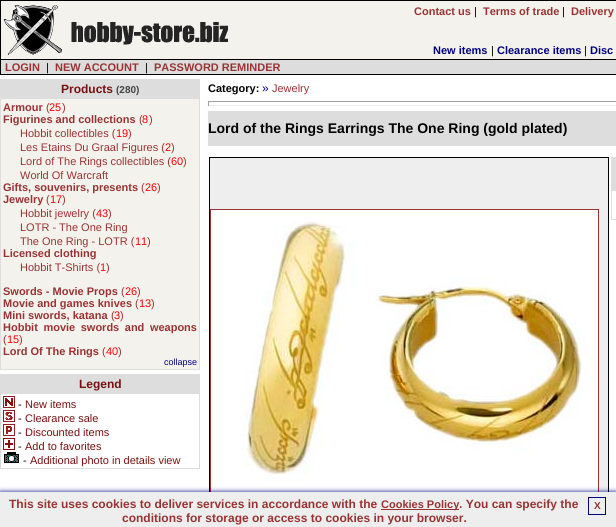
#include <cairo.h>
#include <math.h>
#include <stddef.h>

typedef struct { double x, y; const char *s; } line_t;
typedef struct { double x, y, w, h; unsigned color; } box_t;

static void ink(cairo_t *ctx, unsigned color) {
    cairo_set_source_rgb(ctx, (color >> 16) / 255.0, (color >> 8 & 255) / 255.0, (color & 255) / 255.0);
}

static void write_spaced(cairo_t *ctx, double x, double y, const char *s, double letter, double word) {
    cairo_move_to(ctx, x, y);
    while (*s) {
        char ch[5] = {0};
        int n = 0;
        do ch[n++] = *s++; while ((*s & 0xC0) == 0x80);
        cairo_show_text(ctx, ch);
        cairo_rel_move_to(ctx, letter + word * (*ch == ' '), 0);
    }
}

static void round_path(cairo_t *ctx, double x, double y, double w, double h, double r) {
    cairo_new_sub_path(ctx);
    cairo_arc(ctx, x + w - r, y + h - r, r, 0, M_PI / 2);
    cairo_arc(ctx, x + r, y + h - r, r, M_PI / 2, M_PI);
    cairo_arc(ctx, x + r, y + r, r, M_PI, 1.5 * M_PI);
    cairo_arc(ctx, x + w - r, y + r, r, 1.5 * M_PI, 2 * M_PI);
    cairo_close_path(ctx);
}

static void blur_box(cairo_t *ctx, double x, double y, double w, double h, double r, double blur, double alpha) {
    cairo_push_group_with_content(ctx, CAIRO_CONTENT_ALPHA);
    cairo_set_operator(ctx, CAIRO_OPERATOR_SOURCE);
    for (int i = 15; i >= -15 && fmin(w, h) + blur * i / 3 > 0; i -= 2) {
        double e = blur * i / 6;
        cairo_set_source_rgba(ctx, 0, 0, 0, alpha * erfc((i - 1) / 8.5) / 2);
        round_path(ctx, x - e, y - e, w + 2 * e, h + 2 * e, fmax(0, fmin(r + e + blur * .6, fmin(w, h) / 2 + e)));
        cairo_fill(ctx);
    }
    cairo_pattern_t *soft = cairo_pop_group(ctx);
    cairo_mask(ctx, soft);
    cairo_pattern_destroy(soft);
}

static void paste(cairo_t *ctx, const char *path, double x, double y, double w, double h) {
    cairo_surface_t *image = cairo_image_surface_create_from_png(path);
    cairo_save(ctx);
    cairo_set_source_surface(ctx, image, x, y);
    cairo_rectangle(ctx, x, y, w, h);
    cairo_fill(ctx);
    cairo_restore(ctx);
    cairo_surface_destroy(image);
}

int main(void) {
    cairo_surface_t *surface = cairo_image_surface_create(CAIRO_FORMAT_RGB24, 616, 527);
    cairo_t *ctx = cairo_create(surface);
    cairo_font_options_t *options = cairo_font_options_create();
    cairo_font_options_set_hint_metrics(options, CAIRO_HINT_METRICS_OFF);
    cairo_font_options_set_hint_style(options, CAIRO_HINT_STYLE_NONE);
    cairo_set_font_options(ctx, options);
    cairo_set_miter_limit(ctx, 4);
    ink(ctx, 0xFFFFFF);
    cairo_paint(ctx);
    ink(ctx, 0x000000);
    cairo_rectangle(ctx, 0, 0, 616, 75);
    cairo_fill(ctx);
    ink(ctx, 0xF4F2ED);
    cairo_rectangle(ctx, 1, 1, 615, 58);
    cairo_fill(ctx);
    paste(ctx, "media/1.png", 4, 5, 224, 50);
    cairo_select_font_face(ctx, "Liberation Sans", CAIRO_FONT_SLANT_NORMAL, CAIRO_FONT_WEIGHT_BOLD);
    cairo_set_font_size(ctx, 11);
    ink(ctx, 0x993333);
    cairo_move_to(ctx, 414, 15);
    cairo_show_text(ctx, "Contact us");
    cairo_select_font_face(ctx, "Liberation Sans", CAIRO_FONT_SLANT_NORMAL, CAIRO_FONT_WEIGHT_NORMAL);
    ink(ctx, 0x000000);
    cairo_move_to(ctx, 474, 15);
    cairo_show_text(ctx, "|");
    cairo_select_font_face(ctx, "Liberation Sans", CAIRO_FONT_SLANT_NORMAL, CAIRO_FONT_WEIGHT_BOLD);
    ink(ctx, 0x993333);
    cairo_move_to(ctx, 483, 15);
    cairo_show_text(ctx, "Terms of trade");
    cairo_select_font_face(ctx, "Liberation Sans", CAIRO_FONT_SLANT_NORMAL, CAIRO_FONT_WEIGHT_NORMAL);
    ink(ctx, 0x000000);
    cairo_move_to(ctx, 562, 15);
    cairo_show_text(ctx, "|");
    cairo_select_font_face(ctx, "Liberation Sans", CAIRO_FONT_SLANT_NORMAL, CAIRO_FONT_WEIGHT_BOLD);
    ink(ctx, 0x993333);
    cairo_move_to(ctx, 571, 15);
    cairo_show_text(ctx, "Delivery");
    ink(ctx, 0x000080);
    cairo_move_to(ctx, 433, 54);
    cairo_show_text(ctx, "New items");
    cairo_select_font_face(ctx, "Liberation Sans", CAIRO_FONT_SLANT_NORMAL, CAIRO_FONT_WEIGHT_NORMAL);
    ink(ctx, 0x000000);
    cairo_move_to(ctx, 491, 54);
    cairo_show_text(ctx, "|");
    cairo_select_font_face(ctx, "Liberation Sans", CAIRO_FONT_SLANT_NORMAL, CAIRO_FONT_WEIGHT_BOLD);
    ink(ctx, 0x000080);
    cairo_move_to(ctx, 497, 54);
    cairo_show_text(ctx, "Clearance items");
    cairo_select_font_face(ctx, "Liberation Sans", CAIRO_FONT_SLANT_NORMAL, CAIRO_FONT_WEIGHT_NORMAL);
    ink(ctx, 0x000000);
    cairo_move_to(ctx, 584, 54);
    cairo_show_text(ctx, "|");
    cairo_select_font_face(ctx, "Liberation Sans", CAIRO_FONT_SLANT_NORMAL, CAIRO_FONT_WEIGHT_BOLD);
    ink(ctx, 0x000080);
    cairo_move_to(ctx, 590, 54);
    cairo_show_text(ctx, "Disc");
    ink(ctx, 0xDDDDDD);
    cairo_rectangle(ctx, 1, 60, 615, 14);
    cairo_fill(ctx);
    ink(ctx, 0x993333);
    cairo_move_to(ctx, 5, 71);
    cairo_show_text(ctx, "LOGIN");
    cairo_select_font_face(ctx, "Liberation Sans", CAIRO_FONT_SLANT_NORMAL, CAIRO_FONT_WEIGHT_NORMAL);
    ink(ctx, 0x000000);
    cairo_move_to(ctx, 46, 71);
    cairo_show_text(ctx, "|");
    cairo_select_font_face(ctx, "Liberation Sans", CAIRO_FONT_SLANT_NORMAL, CAIRO_FONT_WEIGHT_BOLD);
    ink(ctx, 0x993333);
    cairo_move_to(ctx, 55, 71);
    cairo_show_text(ctx, "NEW ACCOUNT");
    cairo_select_font_face(ctx, "Liberation Sans", CAIRO_FONT_SLANT_NORMAL, CAIRO_FONT_WEIGHT_NORMAL);
    ink(ctx, 0x000000);
    cairo_move_to(ctx, 145, 71);
    cairo_show_text(ctx, "|");
    cairo_select_font_face(ctx, "Liberation Sans", CAIRO_FONT_SLANT_NORMAL, CAIRO_FONT_WEIGHT_BOLD);
    ink(ctx, 0x993333);
    cairo_move_to(ctx, 154, 71);
    cairo_show_text(ctx, "PASSWORD REMINDER");
    ink(ctx, 0xDDDDDD);
    cairo_rectangle(ctx, 0, 79, 200, 291);
    cairo_fill(ctx);
    cairo_set_font_size(ctx, 12);
    ink(ctx, 0x771111);
    cairo_move_to(ctx, 61, 93);
    cairo_show_text(ctx, "Products");
    cairo_set_font_size(ctx, 10);
    ink(ctx, 0x444444);
    cairo_move_to(ctx, 116, 93);
    cairo_show_text(ctx, "(280)");
    ink(ctx, 0xF4F2ED);
    cairo_rectangle(ctx, 1, 99, 198, 270);
    cairo_fill(ctx);
    cairo_set_font_size(ctx, 11);
    ink(ctx, 0x993333);
    cairo_move_to(ctx, 3, 111);
    cairo_show_text(ctx, "Armour");
    cairo_select_font_face(ctx, "Liberation Sans", CAIRO_FONT_SLANT_NORMAL, CAIRO_FONT_WEIGHT_NORMAL);
    cairo_move_to(ctx, 46, 111);
    cairo_show_text(ctx, "(");
    ink(ctx, 0xFF0000);
    cairo_move_to(ctx, 49, 111);
    cairo_show_text(ctx, "25");
    ink(ctx, 0x993333);
    cairo_move_to(ctx, 62, 111);
    cairo_show_text(ctx, ")");
    cairo_select_font_face(ctx, "Liberation Sans", CAIRO_FONT_SLANT_NORMAL, CAIRO_FONT_WEIGHT_BOLD);
    cairo_move_to(ctx, 3, 123);
    cairo_show_text(ctx, "Figurines and collections");
    cairo_select_font_face(ctx, "Liberation Sans", CAIRO_FONT_SLANT_NORMAL, CAIRO_FONT_WEIGHT_NORMAL);
    cairo_move_to(ctx, 139, 123);
    cairo_show_text(ctx, "(");
    ink(ctx, 0xFF0000);
    cairo_move_to(ctx, 142, 123);
    cairo_show_text(ctx, "8");
    ink(ctx, 0x993333);
    cairo_move_to(ctx, 149, 123);
    cairo_show_text(ctx, ")");
    cairo_move_to(ctx, 20, 137);
    cairo_show_text(ctx, "Hobbit collectibles (");
    ink(ctx, 0xFF0000);
    cairo_move_to(ctx, 116, 137);
    cairo_show_text(ctx, "19");
    ink(ctx, 0x993333);
    cairo_move_to(ctx, 128, 137);
    cairo_show_text(ctx, ")");
    cairo_move_to(ctx, 20, 151);
    cairo_show_text(ctx, "Les Etains Du Graal Figures (");
    ink(ctx, 0xFF0000);
    cairo_move_to(ctx, 165, 151);
    cairo_show_text(ctx, "2");
    ink(ctx, 0x993333);
    cairo_move_to(ctx, 171, 151);
    cairo_show_text(ctx, ")");
    cairo_move_to(ctx, 20, 165);
    cairo_show_text(ctx, "Lord of The Rings collectibles (");
    ink(ctx, 0xFF0000);
    cairo_move_to(ctx, 171, 165);
    cairo_show_text(ctx, "60");
    ink(ctx, 0x993333);
    cairo_move_to(ctx, 183, 165);
    cairo_show_text(ctx, ")");
    cairo_move_to(ctx, 20, 179);
    cairo_show_text(ctx, "World Of Warcraft");
    cairo_select_font_face(ctx, "Liberation Sans", CAIRO_FONT_SLANT_NORMAL, CAIRO_FONT_WEIGHT_BOLD);
    cairo_move_to(ctx, 3, 191);
    cairo_show_text(ctx, "Gifts, souvenirs, presents");
    cairo_select_font_face(ctx, "Liberation Sans", CAIRO_FONT_SLANT_NORMAL, CAIRO_FONT_WEIGHT_NORMAL);
    cairo_move_to(ctx, 141, 191);
    cairo_show_text(ctx, "(");
    ink(ctx, 0xFF0000);
    cairo_move_to(ctx, 145, 191);
    cairo_show_text(ctx, "26");
    ink(ctx, 0x993333);
    cairo_move_to(ctx, 157, 191);
    cairo_show_text(ctx, ")");
    cairo_select_font_face(ctx, "Liberation Sans", CAIRO_FONT_SLANT_NORMAL, CAIRO_FONT_WEIGHT_BOLD);
    cairo_move_to(ctx, 3, 203);
    cairo_show_text(ctx, "Jewelry");
    cairo_select_font_face(ctx, "Liberation Sans", CAIRO_FONT_SLANT_NORMAL, CAIRO_FONT_WEIGHT_NORMAL);
    cairo_move_to(ctx, 46, 203);
    cairo_show_text(ctx, "(");
    ink(ctx, 0xFF0000);
    cairo_move_to(ctx, 50, 203);
    cairo_show_text(ctx, "17");
    ink(ctx, 0x993333);
    cairo_move_to(ctx, 62, 203);
    cairo_show_text(ctx, ")");
    cairo_move_to(ctx, 20, 217);
    cairo_show_text(ctx, "Hobbit jewelry (");
    ink(ctx, 0xFF0000);
    cairo_move_to(ctx, 96, 217);
    cairo_show_text(ctx, "43");
    ink(ctx, 0x993333);
    {
        static const line_t items[] = {
            {108, 217, ")"},
            {20, 231, "LOTR - The One Ring"},
            {20, 245, "The One Ring - LOTR ("},
        };
        for (size_t i = 0; i < sizeof items / sizeof *items; i++) {
            cairo_move_to(ctx, items[i].x, items[i].y);
            cairo_show_text(ctx, items[i].s);
        }
    }
    ink(ctx, 0xFF0000);
    cairo_move_to(ctx, 135, 245);
    cairo_show_text(ctx, "11");
    ink(ctx, 0x993333);
    cairo_move_to(ctx, 147, 245);
    cairo_show_text(ctx, ")");
    cairo_select_font_face(ctx, "Liberation Sans", CAIRO_FONT_SLANT_NORMAL, CAIRO_FONT_WEIGHT_BOLD);
    cairo_move_to(ctx, 3, 257);
    cairo_show_text(ctx, "Licensed clothing");
    cairo_select_font_face(ctx, "Liberation Sans", CAIRO_FONT_SLANT_NORMAL, CAIRO_FONT_WEIGHT_NORMAL);
    cairo_move_to(ctx, 20, 271);
    cairo_show_text(ctx, "Hobbit T-Shirts (");
    ink(ctx, 0xFF0000);
    cairo_move_to(ctx, 100, 271);
    cairo_show_text(ctx, "1");
    ink(ctx, 0x993333);
    cairo_move_to(ctx, 106, 271);
    cairo_show_text(ctx, ")");
    cairo_select_font_face(ctx, "Liberation Sans", CAIRO_FONT_SLANT_NORMAL, CAIRO_FONT_WEIGHT_BOLD);
    cairo_move_to(ctx, 3, 295);
    cairo_show_text(ctx, "Swords - Movie Props");
    cairo_select_font_face(ctx, "Liberation Sans", CAIRO_FONT_SLANT_NORMAL, CAIRO_FONT_WEIGHT_NORMAL);
    cairo_move_to(ctx, 121, 295);
    cairo_show_text(ctx, "(");
    ink(ctx, 0xFF0000);
    cairo_move_to(ctx, 125, 295);
    cairo_show_text(ctx, "26");
    ink(ctx, 0x993333);
    cairo_move_to(ctx, 137, 295);
    cairo_show_text(ctx, ")");
    cairo_select_font_face(ctx, "Liberation Sans", CAIRO_FONT_SLANT_NORMAL, CAIRO_FONT_WEIGHT_BOLD);
    cairo_move_to(ctx, 3, 307);
    cairo_show_text(ctx, "Movie and games knives");
    cairo_select_font_face(ctx, "Liberation Sans", CAIRO_FONT_SLANT_NORMAL, CAIRO_FONT_WEIGHT_NORMAL);
    cairo_move_to(ctx, 135, 307);
    cairo_show_text(ctx, "(");
    ink(ctx, 0xFF0000);
    cairo_move_to(ctx, 139, 307);
    cairo_show_text(ctx, "13");
    ink(ctx, 0x993333);
    cairo_move_to(ctx, 151, 307);
    cairo_show_text(ctx, ")");
    cairo_select_font_face(ctx, "Liberation Sans", CAIRO_FONT_SLANT_NORMAL, CAIRO_FONT_WEIGHT_BOLD);
    cairo_move_to(ctx, 3, 319);
    cairo_show_text(ctx, "Mini swords, katana");
    cairo_select_font_face(ctx, "Liberation Sans", CAIRO_FONT_SLANT_NORMAL, CAIRO_FONT_WEIGHT_NORMAL);
    cairo_move_to(ctx, 111, 319);
    cairo_show_text(ctx, "(");
    ink(ctx, 0xFF0000);
    cairo_move_to(ctx, 114, 319);
    cairo_show_text(ctx, "3");
    ink(ctx, 0x993333);
    cairo_move_to(ctx, 120, 319);
    cairo_show_text(ctx, ")");
    cairo_select_font_face(ctx, "Liberation Sans", CAIRO_FONT_SLANT_NORMAL, CAIRO_FONT_WEIGHT_BOLD);
    write_spaced(ctx, 3, 331, "Hobbit movie swords and weapons", 0, 2.5);
    cairo_select_font_face(ctx, "Liberation Sans", CAIRO_FONT_SLANT_NORMAL, CAIRO_FONT_WEIGHT_NORMAL);
    cairo_move_to(ctx, 3, 343);
    cairo_show_text(ctx, "(");
    ink(ctx, 0xFF0000);
    cairo_move_to(ctx, 7, 343);
    cairo_show_text(ctx, "15");
    ink(ctx, 0x993333);
    cairo_move_to(ctx, 19, 343);
    cairo_show_text(ctx, ")");
    cairo_select_font_face(ctx, "Liberation Sans", CAIRO_FONT_SLANT_NORMAL, CAIRO_FONT_WEIGHT_BOLD);
    cairo_move_to(ctx, 3, 355);
    cairo_show_text(ctx, "Lord Of The Rings");
    cairo_select_font_face(ctx, "Liberation Sans", CAIRO_FONT_SLANT_NORMAL, CAIRO_FONT_WEIGHT_NORMAL);
    cairo_move_to(ctx, 102, 355);
    cairo_show_text(ctx, "(");
    ink(ctx, 0xFF0000);
    cairo_move_to(ctx, 106, 355);
    cairo_show_text(ctx, "40");
    ink(ctx, 0x993333);
    cairo_move_to(ctx, 118, 355);
    cairo_show_text(ctx, ")");
    cairo_set_font_size(ctx, 9);
    ink(ctx, 0x000080);
    cairo_move_to(ctx, 164, 365);
    cairo_show_text(ctx, "collapse");
    ink(ctx, 0xDDDDDD);
    cairo_rectangle(ctx, 0, 374, 200, 95);
    cairo_fill(ctx);
    cairo_select_font_face(ctx, "Liberation Sans", CAIRO_FONT_SLANT_NORMAL, CAIRO_FONT_WEIGHT_BOLD);
    cairo_set_font_size(ctx, 12);
    ink(ctx, 0x771111);
    cairo_move_to(ctx, 79, 388);
    cairo_show_text(ctx, "Legend");
    ink(ctx, 0xFFFFFF);
    cairo_rectangle(ctx, 1, 394, 198, 74);
    cairo_fill(ctx);
    paste(ctx, "media/2.png", 3, 396, 12, 12);
    cairo_select_font_face(ctx, "Liberation Sans", CAIRO_FONT_SLANT_NORMAL, CAIRO_FONT_WEIGHT_NORMAL);
    cairo_set_font_size(ctx, 11);
    ink(ctx, 0x000000);
    cairo_move_to(ctx, 18, 408);
    cairo_show_text(ctx, "-");
    ink(ctx, 0x771111);
    cairo_move_to(ctx, 25, 408);
    cairo_show_text(ctx, "New items");
    paste(ctx, "media/3.png", 3, 410, 12, 12);
    ink(ctx, 0x000000);
    cairo_move_to(ctx, 18, 422);
    cairo_show_text(ctx, "-");
    ink(ctx, 0x771111);
    cairo_move_to(ctx, 25, 422);
    cairo_show_text(ctx, "Clearance sale");
    paste(ctx, "media/4.png", 3, 424, 12, 12);
    ink(ctx, 0x000000);
    cairo_move_to(ctx, 18, 436);
    cairo_show_text(ctx, "-");
    ink(ctx, 0x771111);
    cairo_move_to(ctx, 25, 436);
    cairo_show_text(ctx, "Discounted items");
    paste(ctx, "media/5.png", 3, 438, 12, 12);
    ink(ctx, 0x000000);
    cairo_move_to(ctx, 18, 450);
    cairo_show_text(ctx, "-");
    ink(ctx, 0x771111);
    cairo_move_to(ctx, 25, 450);
    cairo_show_text(ctx, "Add to favorites");
    paste(ctx, "media/6.png", 4, 452, 15, 11);
    ink(ctx, 0x000000);
    cairo_move_to(ctx, 23, 464);
    cairo_show_text(ctx, "-");
    ink(ctx, 0x771111);
    cairo_move_to(ctx, 30, 464);
    cairo_show_text(ctx, "Additional photo in details view");
    cairo_select_font_face(ctx, "Liberation Sans", CAIRO_FONT_SLANT_NORMAL, CAIRO_FONT_WEIGHT_BOLD);
    ink(ctx, 0x000000);
    cairo_move_to(ctx, 208, 92);
    cairo_show_text(ctx, "Category:");
    cairo_select_font_face(ctx, "Liberation Sans", CAIRO_FONT_SLANT_NORMAL, CAIRO_FONT_WEIGHT_NORMAL);
    cairo_set_font_size(ctx, 12);
    ink(ctx, 0x000080);
    cairo_move_to(ctx, 262, 92);
    cairo_show_text(ctx, "»");
    cairo_set_font_size(ctx, 11);
    ink(ctx, 0x993333);
    cairo_move_to(ctx, 272, 92);
    cairo_show_text(ctx, "Jewelry");
    {
        static const box_t items[] = {
            {208, 101, 408, 1, 0x9F9F9F},
            {208, 105, 408, 1, 0xEEEEEE},
            {208, 101, 1, 5, 0x9F9F9F},
            {208, 111, 408, 35, 0xDDDDDD},
        };
        for (size_t i = 0; i < sizeof items / sizeof *items; i++) {
            ink(ctx, items[i].color);
            cairo_rectangle(ctx, items[i].x, items[i].y, items[i].w, items[i].h);
            cairo_fill(ctx);
        }
    }
    cairo_select_font_face(ctx, "Liberation Sans", CAIRO_FONT_SLANT_NORMAL, CAIRO_FONT_WEIGHT_BOLD);
    cairo_set_font_size(ctx, 14);
    ink(ctx, 0x000000);
    cairo_move_to(ctx, 208, 133);
    cairo_show_text(ctx, "Lord of the Rings Earrings The One Ring (gold plated)");
    ink(ctx, 0xEEEEEE);
    cairo_rectangle(ctx, 210, 158, 398, 334);
    cairo_fill(ctx);
    cairo_rectangle(ctx, 209.5, 157.5, 399, 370);
    ink(ctx, 0x000000);
    cairo_set_line_width(ctx, 1);
    cairo_stroke(ctx);
    cairo_rectangle(ctx, 210.5, 209.5, 388, 298);
    ink(ctx, 0x993333);
    cairo_stroke(ctx);
    paste(ctx, "media/7.png", 211, 210, 387, 282);
    ink(ctx, 0xDDDDDD);
    cairo_rectangle(ctx, 611, 157, 5, 63);
    cairo_fill(ctx);
    ink(ctx, 0xFFFFFF);
    cairo_rectangle(ctx, 612, 191, 4, 28);
    cairo_fill(ctx);
    ink(ctx, 0x000080);
    blur_box(ctx, 0, 492, 616, 35, 0, 2.5, 1);
    ink(ctx, 0xEEEEEE);
    cairo_rectangle(ctx, 0, 492, 616, 35);
    cairo_fill(ctx);
    cairo_set_font_size(ctx, 12);
    ink(ctx, 0x993333);
    cairo_move_to(ctx, 9, 508);
    cairo_show_text(ctx, "This site uses cookies to deliver services in accordance with the");
    cairo_rectangle(ctx, 381, 509, 78, 1);
    cairo_fill(ctx);
    cairo_set_font_size(ctx, 11);
    cairo_move_to(ctx, 381, 508);
    cairo_show_text(ctx, "Cookies Policy");
    cairo_set_font_size(ctx, 12);
    cairo_move_to(ctx, 459, 508);
    cairo_show_text(ctx, ". You can specify the");
    cairo_move_to(ctx, 122, 522);
    cairo_show_text(ctx, "conditions for storage or access to cookies in your browser.");
    cairo_rectangle(ctx, 588.5, 497.5, 17, 17);
    ink(ctx, 0x000080);
    cairo_stroke(ctx);
    cairo_set_font_size(ctx, 10);
    ink(ctx, 0x993333);
    cairo_move_to(ctx, 594, 509);
    cairo_show_text(ctx, "X");
    cairo_surface_write_to_png(surface, "image.png");
    cairo_font_options_destroy(options);
    cairo_destroy(ctx);
    cairo_surface_destroy(surface);
    return 0;
}
